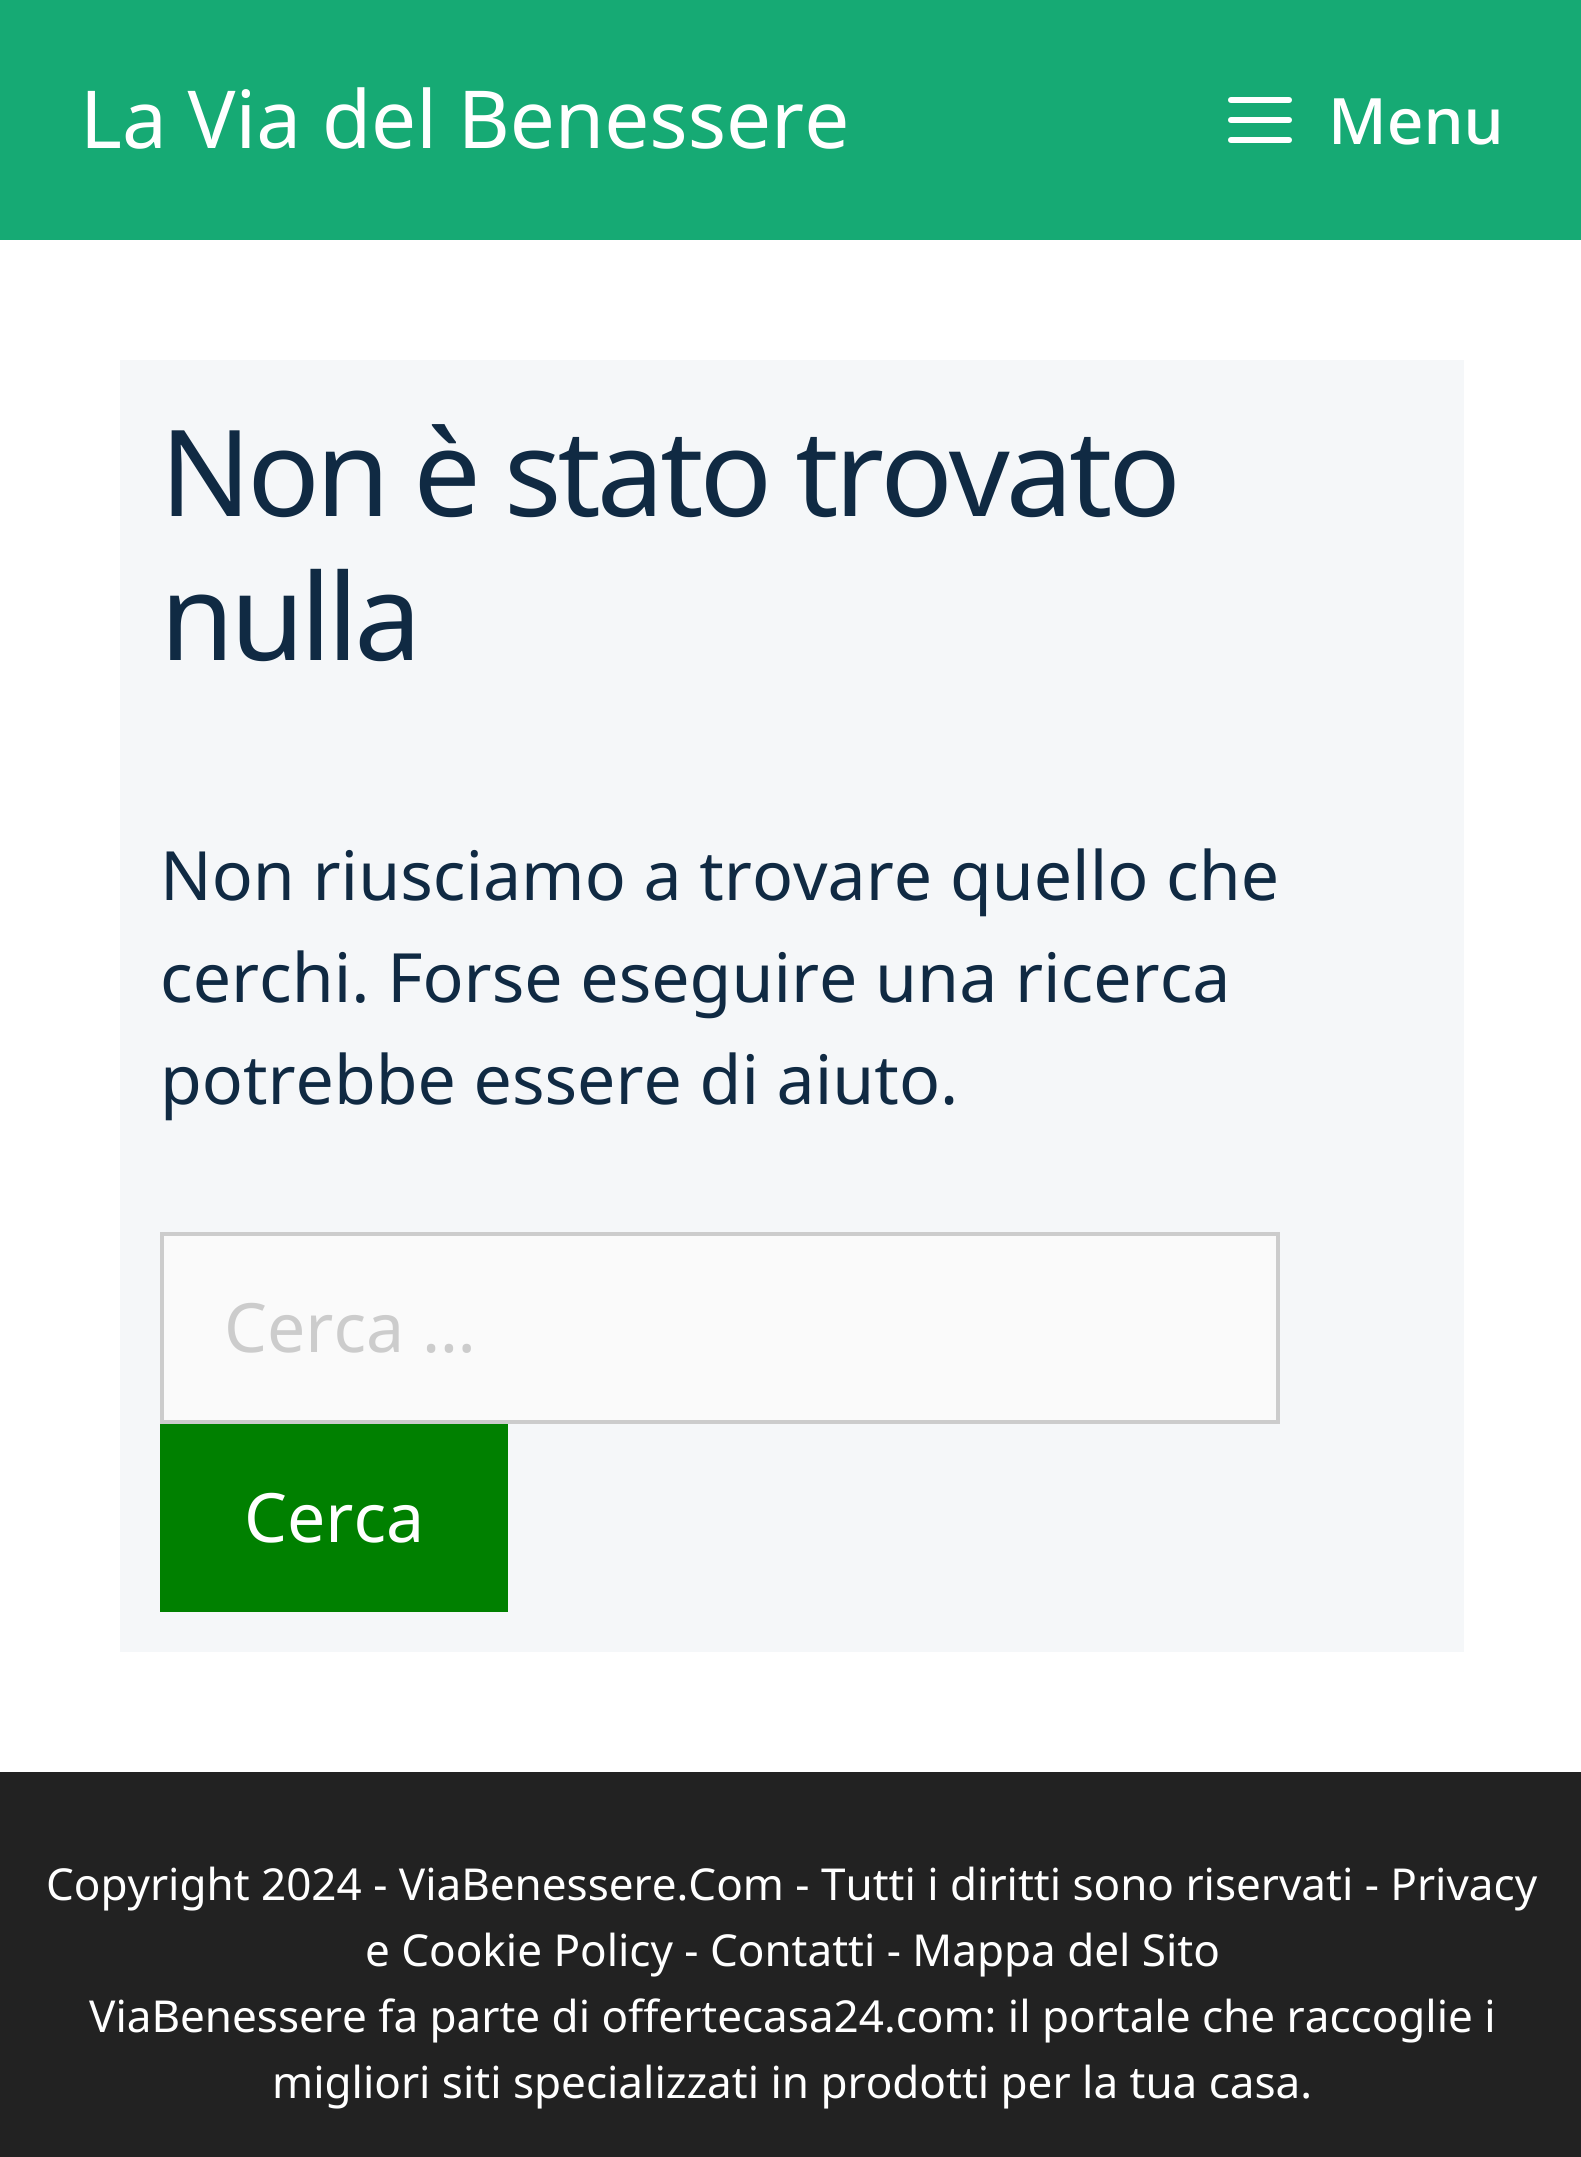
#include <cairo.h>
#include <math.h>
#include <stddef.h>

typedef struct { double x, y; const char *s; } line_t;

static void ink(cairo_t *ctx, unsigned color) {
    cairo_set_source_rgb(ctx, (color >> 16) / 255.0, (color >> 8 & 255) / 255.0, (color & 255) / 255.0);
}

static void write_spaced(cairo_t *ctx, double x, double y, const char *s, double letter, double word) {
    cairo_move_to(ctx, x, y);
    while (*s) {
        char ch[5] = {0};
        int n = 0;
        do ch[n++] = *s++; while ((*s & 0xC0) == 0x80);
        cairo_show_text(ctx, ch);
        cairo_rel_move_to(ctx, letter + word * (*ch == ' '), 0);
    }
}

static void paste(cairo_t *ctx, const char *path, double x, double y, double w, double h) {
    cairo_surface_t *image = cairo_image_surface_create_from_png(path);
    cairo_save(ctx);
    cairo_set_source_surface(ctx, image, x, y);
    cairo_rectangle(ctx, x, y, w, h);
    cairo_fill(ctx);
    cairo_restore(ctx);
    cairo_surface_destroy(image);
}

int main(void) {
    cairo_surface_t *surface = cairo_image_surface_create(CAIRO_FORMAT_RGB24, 1581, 2157);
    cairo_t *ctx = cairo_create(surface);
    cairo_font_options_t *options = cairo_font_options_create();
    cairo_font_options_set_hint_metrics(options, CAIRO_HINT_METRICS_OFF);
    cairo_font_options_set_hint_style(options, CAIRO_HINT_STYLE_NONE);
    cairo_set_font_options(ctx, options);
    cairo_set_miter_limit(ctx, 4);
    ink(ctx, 0xFFFFFF);
    cairo_paint(ctx);
    ink(ctx, 0x16AA74);
    cairo_rectangle(ctx, 0, 0, 1581, 240);
    cairo_fill(ctx);
    cairo_select_font_face(ctx, "Noto Sans", CAIRO_FONT_SLANT_NORMAL, CAIRO_FONT_WEIGHT_NORMAL);
    cairo_set_font_size(ctx, 80);
    ink(ctx, 0xFFFFFF);
    cairo_move_to(ctx, 80, 148);
    cairo_show_text(ctx, "La Via del Benessere");
    paste(ctx, "media/1.png", 1228, 97, 64, 46);
    cairo_select_font_face(ctx, "Noto Sans Medium", CAIRO_FONT_SLANT_NORMAL, CAIRO_FONT_WEIGHT_NORMAL);
    cairo_set_font_size(ctx, 64);
    cairo_move_to(ctx, 1328, 144);
    cairo_show_text(ctx, "Menu");
    ink(ctx, 0xF5F7F9);
    cairo_rectangle(ctx, 120, 360, 1344, 1292);
    cairo_fill(ctx);
    cairo_select_font_face(ctx, "Noto Sans", CAIRO_FONT_SLANT_NORMAL, CAIRO_FONT_WEIGHT_NORMAL);
    cairo_set_font_size(ctx, 120);
    ink(ctx, 0x102A43);
    write_spaced(ctx, 160, 516, "Non è stato trovato", -4, 0);
    write_spaced(ctx, 160, 660, "nulla", -4, 0);
    cairo_set_font_size(ctx, 68);
    {
        static const line_t items[] = {
            {160, 900, "Non riusciamo a trovare quello che"},
            {160, 1002, "cerchi. Forse eseguire una ricerca"},
            {160, 1104, "potrebbe essere di aiuto."},
        };
        for (size_t i = 0; i < sizeof items / sizeof *items; i++) {
            cairo_move_to(ctx, items[i].x, items[i].y);
            cairo_show_text(ctx, items[i].s);
        }
    }
    ink(ctx, 0xFAFAFA);
    cairo_rectangle(ctx, 162, 1234, 1116, 188);
    cairo_fill_preserve(ctx);
    ink(ctx, 0xCCCCCC);
    cairo_set_line_width(ctx, 4);
    cairo_stroke(ctx);
    cairo_move_to(ctx, 224, 1352);
    cairo_show_text(ctx, "Cerca …");
    ink(ctx, 0x008000);
    cairo_rectangle(ctx, 160, 1424, 348, 188);
    cairo_fill(ctx);
    ink(ctx, 0xFFFFFF);
    cairo_move_to(ctx, 244, 1542);
    cairo_show_text(ctx, "Cerca");
    ink(ctx, 0x222222);
    cairo_rectangle(ctx, 0, 1772, 1581, 385);
    cairo_fill(ctx);
    cairo_set_font_size(ctx, 44);
    ink(ctx, 0xFFFFFF);
    {
        static const line_t items[] = {
            {46, 1900, "Copyright 2024 - ViaBenessere.Com - Tutti i diritti sono riservati - Privacy"},
            {365, 1966, "e Cookie Policy - Contatti - Mappa del Sito"},
            {89, 2032, "ViaBenessere fa parte di offertecasa24.com: il portale che raccoglie i"},
            {272, 2098, "migliori siti specializzati in prodotti per la tua casa."},
        };
        for (size_t i = 0; i < sizeof items / sizeof *items; i++) {
            cairo_move_to(ctx, items[i].x, items[i].y);
            cairo_show_text(ctx, items[i].s);
        }
    }
    cairo_surface_write_to_png(surface, "image.png");
    cairo_font_options_destroy(options);
    cairo_destroy(ctx);
    cairo_surface_destroy(surface);
    return 0;
}
